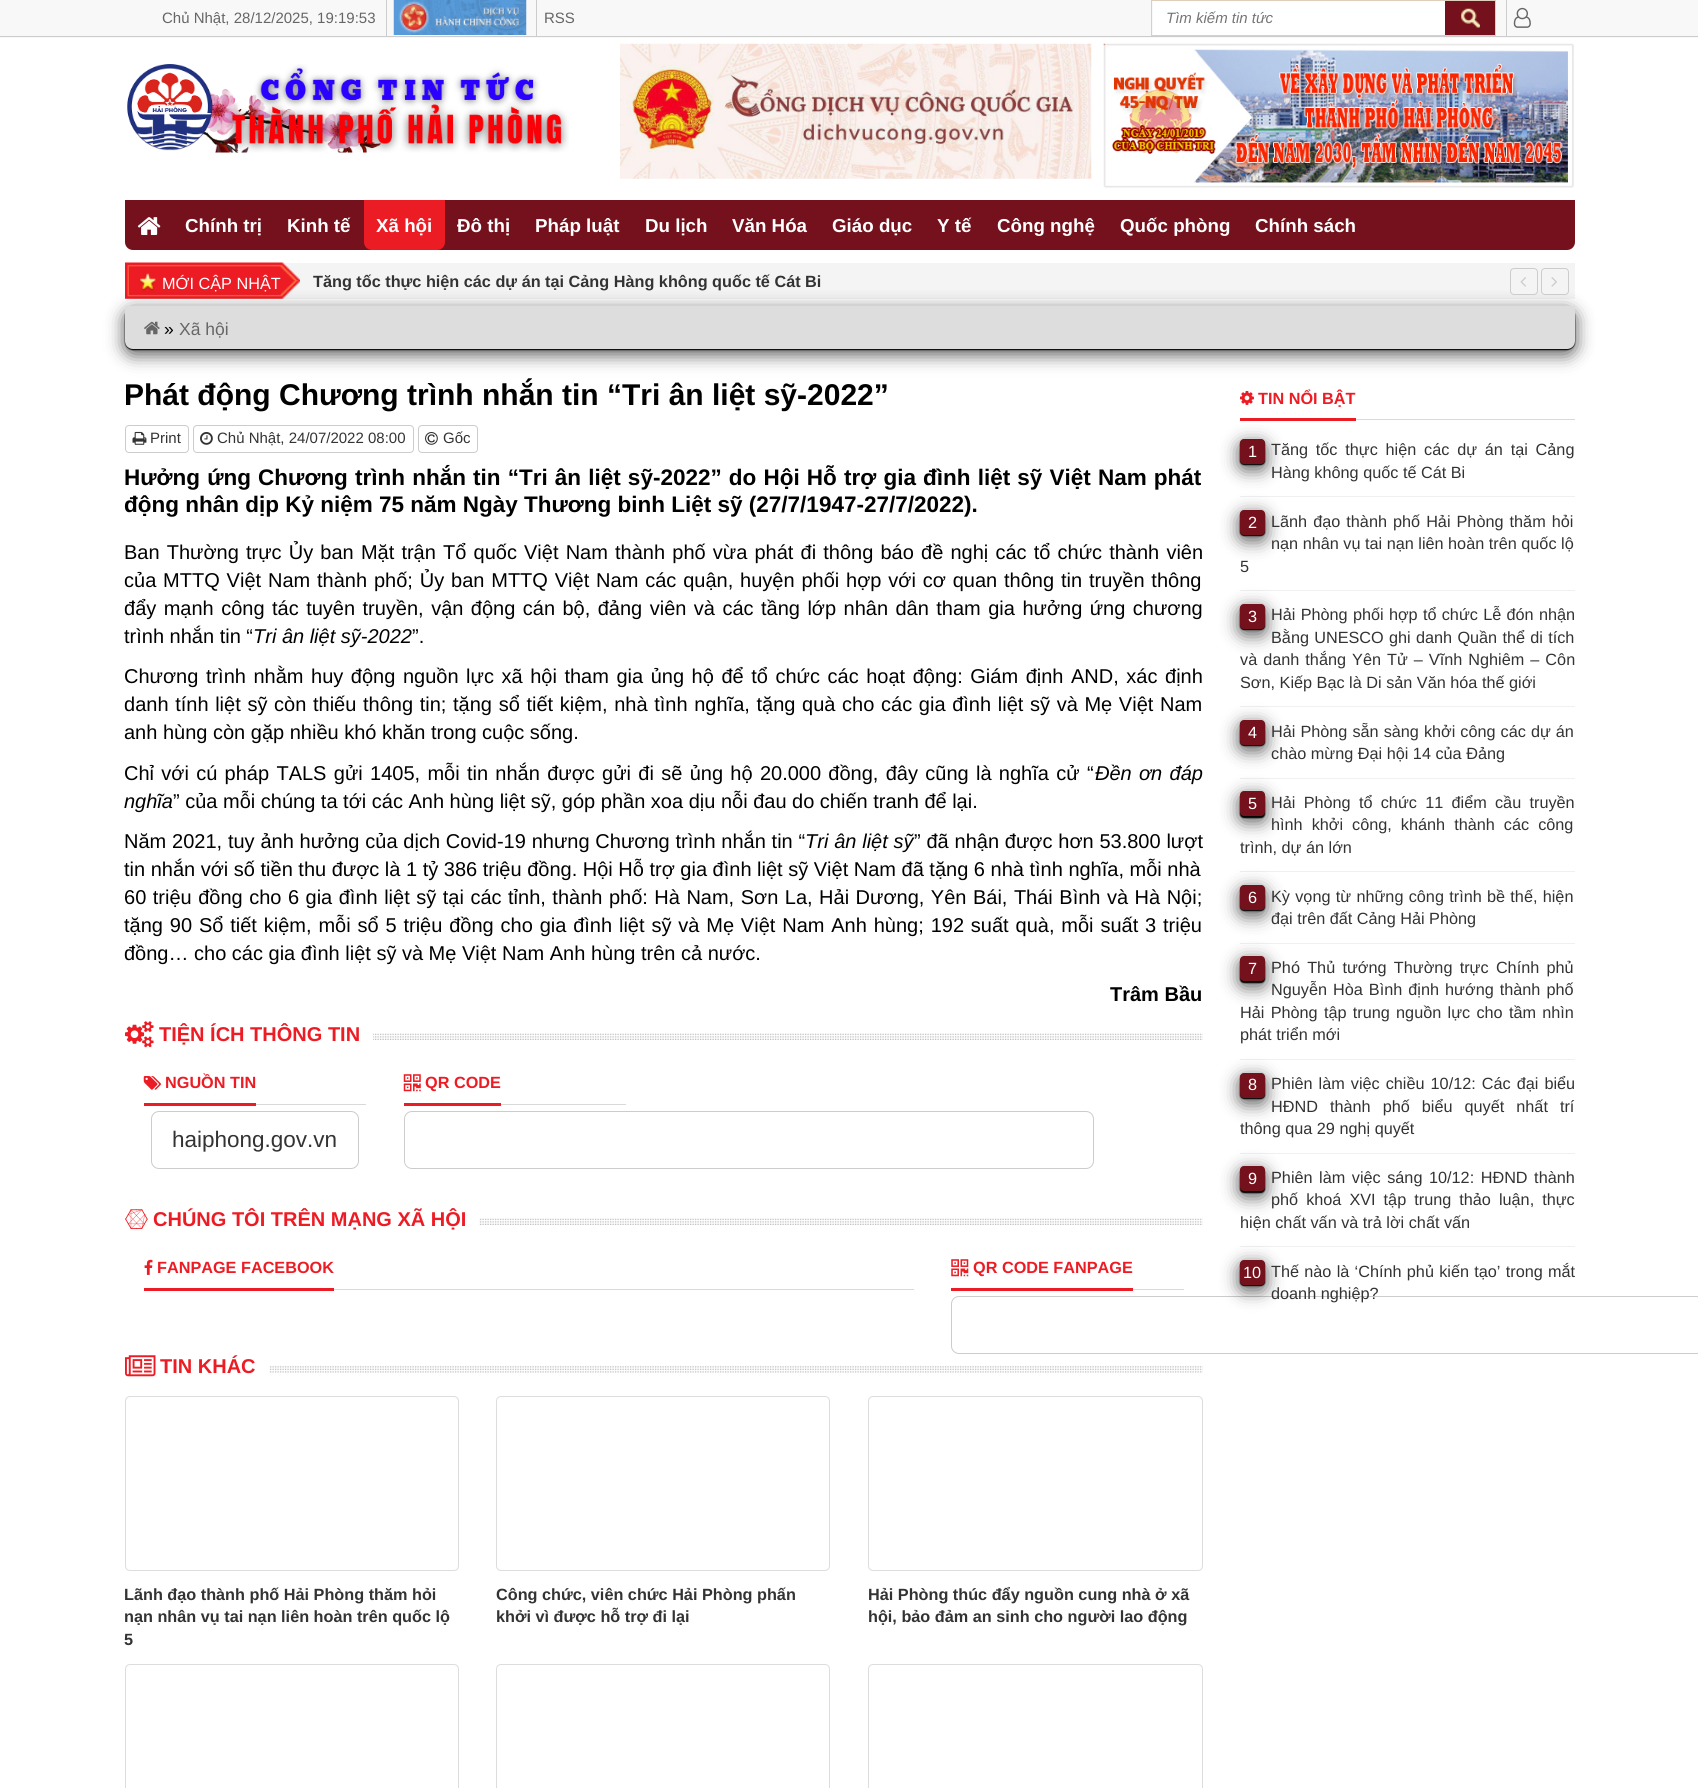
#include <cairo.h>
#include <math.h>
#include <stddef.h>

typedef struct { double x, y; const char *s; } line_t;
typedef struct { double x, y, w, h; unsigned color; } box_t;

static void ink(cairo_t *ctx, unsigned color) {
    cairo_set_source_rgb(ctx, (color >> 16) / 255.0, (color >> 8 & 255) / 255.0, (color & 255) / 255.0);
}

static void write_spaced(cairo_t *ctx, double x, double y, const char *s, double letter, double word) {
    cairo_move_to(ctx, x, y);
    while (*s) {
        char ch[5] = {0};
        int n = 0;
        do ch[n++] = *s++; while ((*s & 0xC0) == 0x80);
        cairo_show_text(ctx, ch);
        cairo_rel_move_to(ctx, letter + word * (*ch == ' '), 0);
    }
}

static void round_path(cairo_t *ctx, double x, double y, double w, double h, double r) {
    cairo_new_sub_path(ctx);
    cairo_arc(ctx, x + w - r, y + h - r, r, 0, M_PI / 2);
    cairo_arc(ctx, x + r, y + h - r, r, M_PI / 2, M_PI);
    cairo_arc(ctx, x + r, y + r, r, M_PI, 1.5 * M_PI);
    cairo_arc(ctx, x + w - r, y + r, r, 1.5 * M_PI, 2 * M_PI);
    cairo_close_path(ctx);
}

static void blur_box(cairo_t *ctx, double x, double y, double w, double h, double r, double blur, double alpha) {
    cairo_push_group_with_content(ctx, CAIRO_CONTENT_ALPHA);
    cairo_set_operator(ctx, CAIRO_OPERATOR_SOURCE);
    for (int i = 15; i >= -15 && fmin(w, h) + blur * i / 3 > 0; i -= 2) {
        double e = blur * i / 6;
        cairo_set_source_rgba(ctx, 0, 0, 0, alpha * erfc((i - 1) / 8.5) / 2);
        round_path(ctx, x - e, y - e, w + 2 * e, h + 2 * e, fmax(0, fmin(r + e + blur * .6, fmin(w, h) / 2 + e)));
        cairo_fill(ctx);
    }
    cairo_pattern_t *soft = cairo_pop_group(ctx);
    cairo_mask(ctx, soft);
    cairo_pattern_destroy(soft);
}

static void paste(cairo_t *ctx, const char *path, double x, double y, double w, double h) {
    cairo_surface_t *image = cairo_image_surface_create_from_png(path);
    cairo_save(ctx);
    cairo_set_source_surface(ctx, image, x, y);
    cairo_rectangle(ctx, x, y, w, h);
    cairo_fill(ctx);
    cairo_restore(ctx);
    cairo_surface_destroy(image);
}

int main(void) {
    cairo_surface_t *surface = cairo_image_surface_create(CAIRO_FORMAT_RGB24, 1698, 1788);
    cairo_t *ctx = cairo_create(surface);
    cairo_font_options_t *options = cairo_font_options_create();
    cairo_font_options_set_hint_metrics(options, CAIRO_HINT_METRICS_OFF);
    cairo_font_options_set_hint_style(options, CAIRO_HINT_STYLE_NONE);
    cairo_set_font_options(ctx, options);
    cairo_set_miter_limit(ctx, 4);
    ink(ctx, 0xFFFFFF);
    cairo_paint(ctx);
    ink(ctx, 0xF8F8F8);
    cairo_rectangle(ctx, 0, 0, 1698, 38);
    cairo_fill(ctx);
    ink(ctx, 0xCCCCCC);
    cairo_rectangle(ctx, 0, 36, 1698, 1);
    cairo_fill(ctx);
    cairo_select_font_face(ctx, "Liberation Sans", CAIRO_FONT_SLANT_NORMAL, CAIRO_FONT_WEIGHT_NORMAL);
    cairo_set_font_size(ctx, 15);
    ink(ctx, 0x666666);
    cairo_move_to(ctx, 162, 23);
    cairo_show_text(ctx, "Chủ Nhật, 28/12/2025, 19:19:53");
    ink(ctx, 0xCCCCCC);
    cairo_rectangle(ctx, 386, 0, 1, 36);
    cairo_fill(ctx);
    paste(ctx, "media/1.png", 393, 0, 134, 35);
    cairo_rectangle(ctx, 536, 0, 1, 36);
    cairo_fill(ctx);
    ink(ctx, 0x666666);
    cairo_move_to(ctx, 544, 23);
    cairo_show_text(ctx, "RSS");
    {
        static const box_t items[] = {
            {1153, 1, 292, 34, 0xFFFFFF},
            {1151, 0, 345, 1, 0xE0CEBD},
            {1151, 35, 345, 1, 0xE0CEBD},
            {1151, 0, 1, 36, 0xE0CEBD},
        };
        for (size_t i = 0; i < sizeof items / sizeof *items; i++) {
            ink(ctx, items[i].color);
            cairo_rectangle(ctx, items[i].x, items[i].y, items[i].w, items[i].h);
            cairo_fill(ctx);
        }
    }
    cairo_select_font_face(ctx, "Liberation Sans", CAIRO_FONT_SLANT_ITALIC, CAIRO_FONT_WEIGHT_NORMAL);
    ink(ctx, 0x757575);
    cairo_move_to(ctx, 1166, 23);
    cairo_show_text(ctx, "Tìm kiếm tin tức");
    ink(ctx, 0x74111C);
    cairo_rectangle(ctx, 1445, 1, 50, 34);
    cairo_fill(ctx);
    paste(ctx, "media/2.png", 1461, 8, 19, 20);
    ink(ctx, 0xE0CEBD);
    cairo_rectangle(ctx, 1495, 0, 1, 36);
    cairo_fill(ctx);
    ink(ctx, 0xCCCCCC);
    cairo_rectangle(ctx, 1506, 0, 1, 36);
    cairo_fill(ctx);
    paste(ctx, "media/3.png", 1513, 7, 18, 21);
    paste(ctx, "media/4.png", 127, 64, 442, 89);
    paste(ctx, "media/5.png", 620, 43, 472, 136);
    paste(ctx, "media/6.png", 1103, 43, 471, 145);
    ink(ctx, 0x74111C);
    cairo_new_path(ctx);
    cairo_move_to(ctx, 125, 200);
    cairo_line_to(ctx, 1575, 200);
    cairo_line_to(ctx, 1575, 242);
    cairo_curve_to(ctx, 1575, 246.5, 1571.5, 250, 1567, 250);
    cairo_line_to(ctx, 133, 250);
    cairo_curve_to(ctx, 128.5, 250, 125, 246.5, 125, 242);
    cairo_close_path(ctx);
    cairo_fill(ctx);
    paste(ctx, "media/7.png", 137, 217, 24, 18);
    cairo_select_font_face(ctx, "Liberation Sans", CAIRO_FONT_SLANT_NORMAL, CAIRO_FONT_WEIGHT_BOLD);
    cairo_set_font_size(ctx, 18.75);
    ink(ctx, 0xFFFFFF);
    cairo_move_to(ctx, 185, 232);
    cairo_show_text(ctx, "Chính trị");
    cairo_move_to(ctx, 287, 232);
    cairo_show_text(ctx, "Kinh tế");
    ink(ctx, 0xEC1C24);
    cairo_new_path(ctx);
    cairo_move_to(ctx, 364, 200);
    cairo_line_to(ctx, 445, 200);
    cairo_line_to(ctx, 445, 242);
    cairo_curve_to(ctx, 445, 246.5, 441.5, 250, 437, 250);
    cairo_line_to(ctx, 372, 250);
    cairo_curve_to(ctx, 367.5, 250, 364, 246.5, 364, 242);
    cairo_close_path(ctx);
    cairo_fill(ctx);
    ink(ctx, 0xFFFFFF);
    {
        static const line_t items[] = {
            {376, 232, "Xã hội"},
            {457, 232, "Đô thị"},
            {535, 232, "Pháp luật"},
            {645, 232, "Du lịch"},
            {732, 232, "Văn Hóa"},
            {832, 232, "Giáo dục"},
            {937, 232, "Y tế"},
            {997, 232, "Công nghệ"},
            {1120, 232, "Quốc phòng"},
            {1255, 232, "Chính sách"},
        };
        for (size_t i = 0; i < sizeof items / sizeof *items; i++) {
            cairo_move_to(ctx, items[i].x, items[i].y);
            cairo_show_text(ctx, items[i].s);
        }
    }
    ink(ctx, 0xF4F4F4);
    cairo_rectangle(ctx, 125, 263, 1450, 36);
    cairo_fill(ctx);
    paste(ctx, "media/8.png", 125, 262, 175, 37);
    cairo_select_font_face(ctx, "Liberation Sans", CAIRO_FONT_SLANT_NORMAL, CAIRO_FONT_WEIGHT_NORMAL);
    cairo_set_font_size(ctx, 16.25);
    ink(ctx, 0xFFFFFF);
    cairo_move_to(ctx, 162, 289);
    cairo_show_text(ctx, "MỚI CẬP NHẬT");
    ink(ctx, 0x000000);
    blur_box(ctx, 125, 311, 1450, 43, 8, 9, 0.7);
    cairo_select_font_face(ctx, "Liberation Sans", CAIRO_FONT_SLANT_NORMAL, CAIRO_FONT_WEIGHT_BOLD);
    ink(ctx, 0x333333);
    cairo_move_to(ctx, 313, 287);
    cairo_show_text(ctx, "Tăng tốc thực hiện các dự án tại Cảng Hàng không quốc tế Cát Bi");
    ink(ctx, 0xF4F4F4);
    round_path(ctx, 1510.5, 268.5, 27, 26, 3.5);
    cairo_fill_preserve(ctx);
    ink(ctx, 0xCCCCCC);
    cairo_set_line_width(ctx, 1);
    cairo_stroke(ctx);
    paste(ctx, "media/9.png", 1520, 277, 6, 10);
    ink(ctx, 0xF4F4F4);
    round_path(ctx, 1541.5, 268.5, 27, 26, 3.5);
    cairo_fill_preserve(ctx);
    ink(ctx, 0xCCCCCC);
    cairo_stroke(ctx);
    paste(ctx, "media/10.png", 1551, 277, 6, 10);
    ink(ctx, 0x000000);
    blur_box(ctx, 125, 308, 1450, 42, 8, 0.5, 1);
    ink(ctx, 0xDDDDDD);
    cairo_new_path(ctx);
    cairo_move_to(ctx, 125, 306);
    cairo_line_to(ctx, 1575, 306);
    cairo_line_to(ctx, 1575, 341);
    cairo_curve_to(ctx, 1575, 345.5, 1571.5, 349, 1567, 349);
    cairo_line_to(ctx, 133, 349);
    cairo_curve_to(ctx, 128.5, 349, 125, 345.5, 125, 341);
    cairo_close_path(ctx);
    cairo_fill(ctx);
    paste(ctx, "media/11.png", 144, 321, 16, 14);
    cairo_select_font_face(ctx, "Liberation Sans", CAIRO_FONT_SLANT_NORMAL, CAIRO_FONT_WEIGHT_NORMAL);
    cairo_set_font_size(ctx, 17.5);
    ink(ctx, 0x000000);
    cairo_move_to(ctx, 164, 335);
    cairo_show_text(ctx, "»");
    ink(ctx, 0x666666);
    cairo_move_to(ctx, 179, 335);
    cairo_show_text(ctx, "Xã hội");
    cairo_select_font_face(ctx, "Liberation Sans", CAIRO_FONT_SLANT_NORMAL, CAIRO_FONT_WEIGHT_BOLD);
    cairo_set_font_size(ctx, 30);
    ink(ctx, 0x000000);
    cairo_move_to(ctx, 124, 405);
    cairo_show_text(ctx, "Phát động Chương trình nhắn tin “Tri ân liệt sỹ-2022”");
    round_path(ctx, 125.5, 425.5, 63, 27, 3.5);
    ink(ctx, 0xCCCCCC);
    cairo_stroke(ctx);
    paste(ctx, "media/12.png", 132, 431, 15, 14);
    cairo_select_font_face(ctx, "Liberation Sans", CAIRO_FONT_SLANT_NORMAL, CAIRO_FONT_WEIGHT_NORMAL);
    cairo_set_font_size(ctx, 15);
    ink(ctx, 0x333333);
    cairo_move_to(ctx, 150, 443);
    cairo_show_text(ctx, "Print");
    round_path(ctx, 193.5, 425.5, 220, 27, 3.5);
    ink(ctx, 0xCCCCCC);
    cairo_stroke(ctx);
    paste(ctx, "media/13.png", 200, 432, 13, 13);
    ink(ctx, 0x333333);
    cairo_move_to(ctx, 217, 443);
    cairo_show_text(ctx, "Chủ Nhật, 24/07/2022 08:00");
    round_path(ctx, 418.5, 425.5, 59, 27, 3.5);
    ink(ctx, 0xCCCCCC);
    cairo_stroke(ctx);
    paste(ctx, "media/14.png", 425, 432, 13, 13);
    ink(ctx, 0x333333);
    cairo_move_to(ctx, 443, 443);
    cairo_show_text(ctx, "Gốc");
    cairo_select_font_face(ctx, "Liberation Sans", CAIRO_FONT_SLANT_NORMAL, CAIRO_FONT_WEIGHT_BOLD);
    cairo_set_font_size(ctx, 22.5);
    ink(ctx, 0x000000);
    write_spaced(ctx, 124, 485, "Hưởng ứng Chương trình nhắn tin “Tri ân liệt sỹ-2022” do Hội Hỗ trợ gia đình liệt sỹ Việt Nam phát", 0, 0.9);
    cairo_move_to(ctx, 124, 512);
    cairo_show_text(ctx, "động nhân dịp Kỷ niệm 75 năm Ngày Thương binh Liệt sỹ (27/7/1947-27/7/2022).");
    cairo_select_font_face(ctx, "Liberation Sans", CAIRO_FONT_SLANT_NORMAL, CAIRO_FONT_WEIGHT_NORMAL);
    cairo_set_font_size(ctx, 20);
    write_spaced(ctx, 124, 559, "Ban Thường trực Ủy ban Mặt trận Tổ quốc Việt Nam thành phố vừa phát đi thông báo đề nghị các tổ chức thành viên", 0, 1.6);
    write_spaced(ctx, 124, 587, "của MTTQ Việt Nam thành phố; Ủy ban MTTQ Việt Nam các quận, huyện phối hợp với cơ quan thông tin truyền thông", 0, 1.3);
    write_spaced(ctx, 124, 615, "đẩy mạnh công tác tuyên truyền, vận động cán bộ, đảng viên và các tầng lớp nhân dân tham gia hưởng ứng chương", 0, 1.9);
    cairo_move_to(ctx, 124, 643);
    cairo_show_text(ctx, "trình nhắn tin “");
    cairo_select_font_face(ctx, "Liberation Sans", CAIRO_FONT_SLANT_ITALIC, CAIRO_FONT_WEIGHT_NORMAL);
    cairo_move_to(ctx, 253, 643);
    cairo_show_text(ctx, "Tri ân liệt sỹ-2022");
    cairo_select_font_face(ctx, "Liberation Sans", CAIRO_FONT_SLANT_NORMAL, CAIRO_FONT_WEIGHT_NORMAL);
    cairo_move_to(ctx, 412, 643);
    cairo_show_text(ctx, "”.");
    write_spaced(ctx, 124, 683, "Chương trình nhằm huy động nguồn lực xã hội tham gia ủng hộ để tổ chức các hoạt động: Giám định AND, xác định", 0, 2);
    write_spaced(ctx, 124, 711, "danh tính liệt sỹ còn thiếu thông tin; tặng sổ tiết kiệm, nhà tình nghĩa, tặng quà cho các gia đình liệt sỹ và Mẹ Việt Nam", 0, 1.1);
    cairo_move_to(ctx, 124, 739);
    cairo_show_text(ctx, "anh hùng còn gặp nhiều khó khăn trong cuộc sống.");
    write_spaced(ctx, 124, 780, "Chỉ với cú pháp TALS gửi 1405, mỗi tin nhắn được gửi đi sẽ ủng hộ 20.000 đồng, đây cũng là nghĩa cử “", 0, 1.75);
    cairo_select_font_face(ctx, "Liberation Sans", CAIRO_FONT_SLANT_ITALIC, CAIRO_FONT_WEIGHT_NORMAL);
    write_spaced(ctx, 1095, 780, "Đền ơn đáp", 0, 1.75);
    cairo_move_to(ctx, 124, 808);
    cairo_show_text(ctx, "nghĩa");
    cairo_select_font_face(ctx, "Liberation Sans", CAIRO_FONT_SLANT_NORMAL, CAIRO_FONT_WEIGHT_NORMAL);
    cairo_move_to(ctx, 173, 808);
    cairo_show_text(ctx, "” của mỗi chúng ta tới các Anh hùng liệt sỹ, góp phần xoa dịu nỗi đau do chiến tranh để lại.");
    write_spaced(ctx, 124, 848, "Năm 2021, tuy ảnh hưởng của dịch Covid-19 nhưng Chương trình nhắn tin “", 0, 0.25);
    cairo_select_font_face(ctx, "Liberation Sans", CAIRO_FONT_SLANT_ITALIC, CAIRO_FONT_WEIGHT_NORMAL);
    write_spaced(ctx, 805, 848, "Tri ân liệt sỹ", 0, 0.25);
    cairo_select_font_face(ctx, "Liberation Sans", CAIRO_FONT_SLANT_NORMAL, CAIRO_FONT_WEIGHT_NORMAL);
    write_spaced(ctx, 914, 848, "” đã nhận được hơn 53.800 lượt", 0, 0.25);
    cairo_move_to(ctx, 124, 876);
    cairo_show_text(ctx, "tin nhắn với số tiền thu được là 1 tỷ 386 triệu đồng. Hội Hỗ trợ gia đình liệt sỹ Việt Nam đã tặng 6 nhà tình nghĩa, mỗi nhà");
    write_spaced(ctx, 124, 904, "60 triệu đồng cho 6 gia đình liệt sỹ tại các tỉnh, thành phố: Hà Nam, Sơn La, Hải Dương, Yên Bái, Thái Bình và Hà Nội;", 0, 0.95);
    write_spaced(ctx, 124, 932, "tặng 90 Sổ tiết kiệm, mỗi sổ 5 triệu đồng cho gia đình liệt sỹ và Mẹ Việt Nam Anh hùng; 192 suất quà, mỗi suất 3 triệu", 0, 1.3);
    cairo_move_to(ctx, 124, 960);
    cairo_show_text(ctx, "đồng… cho các gia đình liệt sỹ và Mẹ Việt Nam Anh hùng trên cả nước.");
    cairo_select_font_face(ctx, "Liberation Sans", CAIRO_FONT_SLANT_NORMAL, CAIRO_FONT_WEIGHT_BOLD);
    cairo_move_to(ctx, 1110, 1001);
    cairo_show_text(ctx, "Trâm Bầu");
    paste(ctx, "media/15.png", 373, 1033, 830, 7);
    paste(ctx, "media/16.png", 125, 1021, 29, 27);
    ink(ctx, 0xED1C24);
    cairo_move_to(ctx, 159, 1041);
    cairo_show_text(ctx, "TIỆN ÍCH THÔNG TIN");
    ink(ctx, 0xD9D9D9);
    cairo_rectangle(ctx, 256, 1104, 110, 1);
    cairo_fill(ctx);
    ink(ctx, 0xEC1C24);
    cairo_rectangle(ctx, 144, 1103, 112, 3);
    cairo_fill(ctx);
    paste(ctx, "media/17.png", 143, 1076, 18, 14);
    cairo_set_font_size(ctx, 16.25);
    ink(ctx, 0xED1C24);
    cairo_move_to(ctx, 165, 1088);
    cairo_show_text(ctx, "NGUỒN TIN");
    round_path(ctx, 151.5, 1111.5, 207, 57, 7.5);
    ink(ctx, 0xCCCCCC);
    cairo_stroke(ctx);
    cairo_select_font_face(ctx, "Liberation Sans", CAIRO_FONT_SLANT_NORMAL, CAIRO_FONT_WEIGHT_NORMAL);
    cairo_set_font_size(ctx, 22.5);
    ink(ctx, 0x333333);
    cairo_move_to(ctx, 172, 1147);
    cairo_show_text(ctx, "haiphong.gov.vn");
    ink(ctx, 0xD9D9D9);
    cairo_rectangle(ctx, 501, 1104, 125, 1);
    cairo_fill(ctx);
    ink(ctx, 0xEC1C24);
    cairo_rectangle(ctx, 404, 1103, 97, 3);
    cairo_fill(ctx);
    paste(ctx, "media/18.png", 403, 1074, 18, 18);
    cairo_select_font_face(ctx, "Liberation Sans", CAIRO_FONT_SLANT_NORMAL, CAIRO_FONT_WEIGHT_BOLD);
    cairo_set_font_size(ctx, 16.25);
    ink(ctx, 0xED1C24);
    cairo_move_to(ctx, 425, 1088);
    cairo_show_text(ctx, "QR CODE");
    round_path(ctx, 404.5, 1111.5, 689, 57, 7.5);
    ink(ctx, 0xCCCCCC);
    cairo_stroke(ctx);
    paste(ctx, "media/19.png", 479, 1218, 724, 7);
    paste(ctx, "media/20.png", 125, 1209, 23, 21);
    cairo_set_font_size(ctx, 20);
    ink(ctx, 0xED1C24);
    cairo_move_to(ctx, 153, 1226);
    cairo_show_text(ctx, "CHÚNG TÔI TRÊN MẠNG XÃ HỘI");
    ink(ctx, 0xD9D9D9);
    cairo_rectangle(ctx, 334, 1289, 580, 1);
    cairo_fill(ctx);
    ink(ctx, 0xEC1C24);
    cairo_rectangle(ctx, 144, 1288, 190, 3);
    cairo_fill(ctx);
    paste(ctx, "media/21.png", 144, 1259, 9, 16);
    cairo_set_font_size(ctx, 16.25);
    ink(ctx, 0xED1C24);
    cairo_move_to(ctx, 157, 1273);
    cairo_show_text(ctx, "FANPAGE FACEBOOK");
    ink(ctx, 0xD9D9D9);
    cairo_rectangle(ctx, 1133, 1289, 51, 1);
    cairo_fill(ctx);
    ink(ctx, 0xEC1C24);
    cairo_rectangle(ctx, 951, 1288, 182, 3);
    cairo_fill(ctx);
    paste(ctx, "media/22.png", 951, 1259, 18, 18);
    ink(ctx, 0xED1C24);
    cairo_move_to(ctx, 973, 1273);
    cairo_show_text(ctx, "QR CODE FANPAGE");
    round_path(ctx, 951.5, 1296.5, 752, 57, 7.5);
    ink(ctx, 0xCCCCCC);
    cairo_stroke(ctx);
    paste(ctx, "media/23.png", 269, 1366, 934, 7);
    paste(ctx, "media/24.png", 125, 1355, 31, 22);
    cairo_set_font_size(ctx, 20);
    ink(ctx, 0xED1C24);
    cairo_move_to(ctx, 160, 1373);
    cairo_show_text(ctx, "TIN KHÁC");
    round_path(ctx, 125.5, 1396.5, 333, 174, 4.5);
    ink(ctx, 0xDDDDDD);
    cairo_stroke(ctx);
    cairo_set_font_size(ctx, 16.25);
    ink(ctx, 0x333333);
    {
        static const line_t items[] = {
            {124, 1600, "Lãnh đạo thành phố Hải Phòng thăm hỏi"},
            {124, 1622, "nạn nhân vụ tai nạn liên hoàn trên quốc lộ"},
            {124, 1645, "5"},
        };
        for (size_t i = 0; i < sizeof items / sizeof *items; i++) {
            cairo_move_to(ctx, items[i].x, items[i].y);
            cairo_show_text(ctx, items[i].s);
        }
    }
    round_path(ctx, 496.5, 1396.5, 333, 174, 4.5);
    ink(ctx, 0xDDDDDD);
    cairo_stroke(ctx);
    ink(ctx, 0x333333);
    cairo_move_to(ctx, 496, 1600);
    cairo_show_text(ctx, "Công chức, viên chức Hải Phòng phấn");
    cairo_move_to(ctx, 496, 1622);
    cairo_show_text(ctx, "khởi vì được hỗ trợ đi lại");
    round_path(ctx, 868.5, 1396.5, 334, 174, 4.5);
    ink(ctx, 0xDDDDDD);
    cairo_stroke(ctx);
    ink(ctx, 0x333333);
    cairo_move_to(ctx, 868, 1600);
    cairo_show_text(ctx, "Hải Phòng thúc đẩy nguồn cung nhà ở xã");
    cairo_move_to(ctx, 868, 1622);
    cairo_show_text(ctx, "hội, bảo đảm an sinh cho người lao động");
    round_path(ctx, 125.5, 1664.5, 333, 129, 4.5);
    ink(ctx, 0xDDDDDD);
    cairo_stroke(ctx);
    round_path(ctx, 496.5, 1664.5, 333, 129, 4.5);
    cairo_stroke(ctx);
    round_path(ctx, 868.5, 1664.5, 334, 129, 4.5);
    cairo_stroke(ctx);
    ink(ctx, 0xD9D9D9);
    cairo_rectangle(ctx, 1356, 419, 219, 1);
    cairo_fill(ctx);
    ink(ctx, 0xEC1C24);
    cairo_rectangle(ctx, 1240, 418, 116, 3);
    cairo_fill(ctx);
    paste(ctx, "media/25.png", 1240, 391, 14, 14);
    ink(ctx, 0xED1C24);
    cairo_move_to(ctx, 1258, 404);
    cairo_show_text(ctx, "TIN NỔI BẬT");
    ink(ctx, 0xF0F0F0);
    cairo_rectangle(ctx, 1240, 496, 335, 1);
    cairo_fill(ctx);
    ink(ctx, 0x000000);
    blur_box(ctx, 1240, 444, 25, 25, 4, 9, 0.7);
    blur_box(ctx, 1240, 440, 25, 25, 4, 0.5, 1);
    ink(ctx, 0x74111C);
    round_path(ctx, 1240, 439, 25, 25, 4);
    cairo_fill(ctx);
    cairo_select_font_face(ctx, "Liberation Sans", CAIRO_FONT_SLANT_NORMAL, CAIRO_FONT_WEIGHT_NORMAL);
    ink(ctx, 0xFFFFFF);
    cairo_move_to(ctx, 1248, 457);
    cairo_show_text(ctx, "1");
    ink(ctx, 0x333333);
    write_spaced(ctx, 1271, 455, "Tăng tốc thực hiện các dự án tại Cảng", 0, 3.25);
    cairo_move_to(ctx, 1271, 478);
    cairo_show_text(ctx, "Hàng không quốc tế Cát Bi");
    ink(ctx, 0xF0F0F0);
    cairo_rectangle(ctx, 1240, 590, 335, 1);
    cairo_fill(ctx);
    ink(ctx, 0x000000);
    blur_box(ctx, 1240, 515, 25, 25, 4, 9, 0.7);
    blur_box(ctx, 1240, 511, 25, 25, 4, 0.5, 1);
    ink(ctx, 0x74111C);
    round_path(ctx, 1240, 510, 25, 25, 4);
    cairo_fill(ctx);
    ink(ctx, 0xFFFFFF);
    cairo_move_to(ctx, 1248, 528);
    cairo_show_text(ctx, "2");
    ink(ctx, 0x333333);
    write_spaced(ctx, 1271, 527, "Lãnh đạo thành phố Hải Phòng thăm hỏi", 0, 1.5);
    cairo_move_to(ctx, 1271, 549);
    cairo_show_text(ctx, "nạn nhân vụ tai nạn liên hoàn trên quốc lộ");
    cairo_move_to(ctx, 1240, 572);
    cairo_show_text(ctx, "5");
    ink(ctx, 0xF0F0F0);
    cairo_rectangle(ctx, 1240, 706, 335, 1);
    cairo_fill(ctx);
    ink(ctx, 0x000000);
    blur_box(ctx, 1240, 609, 25, 25, 4, 9, 0.7);
    blur_box(ctx, 1240, 605, 25, 25, 4, 0.5, 1);
    ink(ctx, 0x74111C);
    round_path(ctx, 1240, 604, 25, 25, 4);
    cairo_fill(ctx);
    ink(ctx, 0xFFFFFF);
    cairo_move_to(ctx, 1248, 622);
    cairo_show_text(ctx, "3");
    ink(ctx, 0x333333);
    write_spaced(ctx, 1271, 620, "Hải Phòng phối hợp tổ chức Lễ đón nhận", 0, 0.75);
    write_spaced(ctx, 1271, 643, "Bằng UNESCO ghi danh Quần thể di tích", 0, 0.75);
    write_spaced(ctx, 1240, 665, "và danh thắng Yên Tử – Vĩnh Nghiêm – Côn", 0, 1.5);
    cairo_move_to(ctx, 1240, 688);
    cairo_show_text(ctx, "Sơn, Kiếp Bạc là Di sản Văn hóa thế giới");
    ink(ctx, 0xF0F0F0);
    cairo_rectangle(ctx, 1240, 778, 335, 1);
    cairo_fill(ctx);
    ink(ctx, 0x000000);
    blur_box(ctx, 1240, 725, 25, 25, 4, 9, 0.7);
    blur_box(ctx, 1240, 721, 25, 25, 4, 0.5, 1);
    ink(ctx, 0x74111C);
    round_path(ctx, 1240, 720, 25, 25, 4);
    cairo_fill(ctx);
    ink(ctx, 0xFFFFFF);
    cairo_move_to(ctx, 1248, 738);
    cairo_show_text(ctx, "4");
    ink(ctx, 0x333333);
    write_spaced(ctx, 1271, 737, "Hải Phòng sẵn sàng khởi công các dự án", 0, 0.5);
    cairo_move_to(ctx, 1271, 759);
    cairo_show_text(ctx, "chào mừng Đại hội 14 của Đảng");
    ink(ctx, 0xF0F0F0);
    cairo_rectangle(ctx, 1240, 871, 335, 1);
    cairo_fill(ctx);
    ink(ctx, 0x000000);
    blur_box(ctx, 1240, 796, 25, 25, 4, 9, 0.7);
    blur_box(ctx, 1240, 793, 25, 25, 4, 0.5, 1);
    ink(ctx, 0x74111C);
    round_path(ctx, 1240, 791, 25, 25, 4);
    cairo_fill(ctx);
    ink(ctx, 0xFFFFFF);
    cairo_move_to(ctx, 1248, 809);
    cairo_show_text(ctx, "5");
    ink(ctx, 0x333333);
    write_spaced(ctx, 1271, 808, "Hải Phòng tổ chức 11 điểm cầu truyền", 0, 3.75);
    write_spaced(ctx, 1271, 830, "hình khởi công, khánh thành các công", 0, 4.5);
    cairo_move_to(ctx, 1240, 853);
    cairo_show_text(ctx, "trình, dự án lớn");
    ink(ctx, 0xF0F0F0);
    cairo_rectangle(ctx, 1240, 943, 335, 1);
    cairo_fill(ctx);
    ink(ctx, 0x000000);
    blur_box(ctx, 1240, 890, 25, 25, 4, 9, 0.7);
    blur_box(ctx, 1240, 886, 25, 25, 4, 0.5, 1);
    ink(ctx, 0x74111C);
    round_path(ctx, 1240, 885, 25, 25, 4);
    cairo_fill(ctx);
    ink(ctx, 0xFFFFFF);
    cairo_move_to(ctx, 1248, 903);
    cairo_show_text(ctx, "6");
    ink(ctx, 0x333333);
    write_spaced(ctx, 1271, 902, "Kỳ vọng từ những công trình bề thế, hiện", 0, 0.75);
    cairo_move_to(ctx, 1271, 924);
    cairo_show_text(ctx, "đại trên đất Cảng Hải Phòng");
    ink(ctx, 0xF0F0F0);
    cairo_rectangle(ctx, 1240, 1059, 335, 1);
    cairo_fill(ctx);
    ink(ctx, 0x000000);
    blur_box(ctx, 1240, 961, 25, 25, 4, 9, 0.7);
    blur_box(ctx, 1240, 958, 25, 25, 4, 0.5, 1);
    ink(ctx, 0x74111C);
    round_path(ctx, 1240, 956, 25, 25, 4);
    cairo_fill(ctx);
    ink(ctx, 0xFFFFFF);
    cairo_move_to(ctx, 1248, 974);
    cairo_show_text(ctx, "7");
    ink(ctx, 0x333333);
    write_spaced(ctx, 1271, 973, "Phó Thủ tướng Thường trực Chính phủ", 0, 2.75);
    write_spaced(ctx, 1271, 995, "Nguyễn Hòa Bình định hướng thành phố", 0, 1.5);
    write_spaced(ctx, 1240, 1018, "Hải Phòng tập trung nguồn lực cho tầm nhìn", 0, 1.75);
    cairo_move_to(ctx, 1240, 1040);
    cairo_show_text(ctx, "phát triển mới");
    ink(ctx, 0xF0F0F0);
    cairo_rectangle(ctx, 1240, 1153, 335, 1);
    cairo_fill(ctx);
    ink(ctx, 0x000000);
    blur_box(ctx, 1240, 1078, 25, 25, 4, 9, 0.7);
    blur_box(ctx, 1240, 1074, 25, 25, 4, 0.5, 1);
    ink(ctx, 0x74111C);
    round_path(ctx, 1240, 1073, 25, 25, 4);
    cairo_fill(ctx);
    ink(ctx, 0xFFFFFF);
    cairo_move_to(ctx, 1248, 1090);
    cairo_show_text(ctx, "8");
    ink(ctx, 0x333333);
    write_spaced(ctx, 1271, 1089, "Phiên làm việc chiều 10/12: Các đại biểu", 0, 1.5);
    write_spaced(ctx, 1271, 1112, "HĐND thành phố biểu quyết nhất trí", 0, 7.5);
    cairo_move_to(ctx, 1240, 1134);
    cairo_show_text(ctx, "thông qua 29 nghị quyết");
    ink(ctx, 0xF0F0F0);
    cairo_rectangle(ctx, 1240, 1246, 335, 1);
    cairo_fill(ctx);
    ink(ctx, 0x000000);
    blur_box(ctx, 1240, 1171, 25, 25, 4, 9, 0.7);
    blur_box(ctx, 1240, 1168, 25, 25, 4, 0.5, 1);
    ink(ctx, 0x74111C);
    round_path(ctx, 1240, 1166, 25, 25, 4);
    cairo_fill(ctx);
    ink(ctx, 0xFFFFFF);
    cairo_move_to(ctx, 1248, 1184);
    cairo_show_text(ctx, "9");
    ink(ctx, 0x333333);
    write_spaced(ctx, 1271, 1183, "Phiên làm việc sáng 10/12: HĐND thành", 0, 2);
    write_spaced(ctx, 1271, 1205, "phố khoá XVI tập trung thảo luận, thực", 0, 3.5);
    cairo_move_to(ctx, 1240, 1228);
    cairo_show_text(ctx, "hiện chất vấn và trả lời chất vấn");
    ink(ctx, 0x000000);
    blur_box(ctx, 1240, 1265, 25, 25, 4, 9, 0.7);
    blur_box(ctx, 1240, 1261, 25, 25, 4, 0.5, 1);
    ink(ctx, 0x74111C);
    round_path(ctx, 1240, 1260, 25, 25, 4);
    cairo_fill(ctx);
    ink(ctx, 0xFFFFFF);
    cairo_move_to(ctx, 1243, 1278);
    cairo_show_text(ctx, "10");
    ink(ctx, 0x333333);
    write_spaced(ctx, 1271, 1277, "Thế nào là ‘Chính phủ kiến tạo’ trong mắt", 0, 0.75);
    cairo_move_to(ctx, 1271, 1299);
    cairo_show_text(ctx, "doanh nghiệp?");
    cairo_surface_write_to_png(surface, "image.png");
    cairo_font_options_destroy(options);
    cairo_destroy(ctx);
    cairo_surface_destroy(surface);
    return 0;
}
